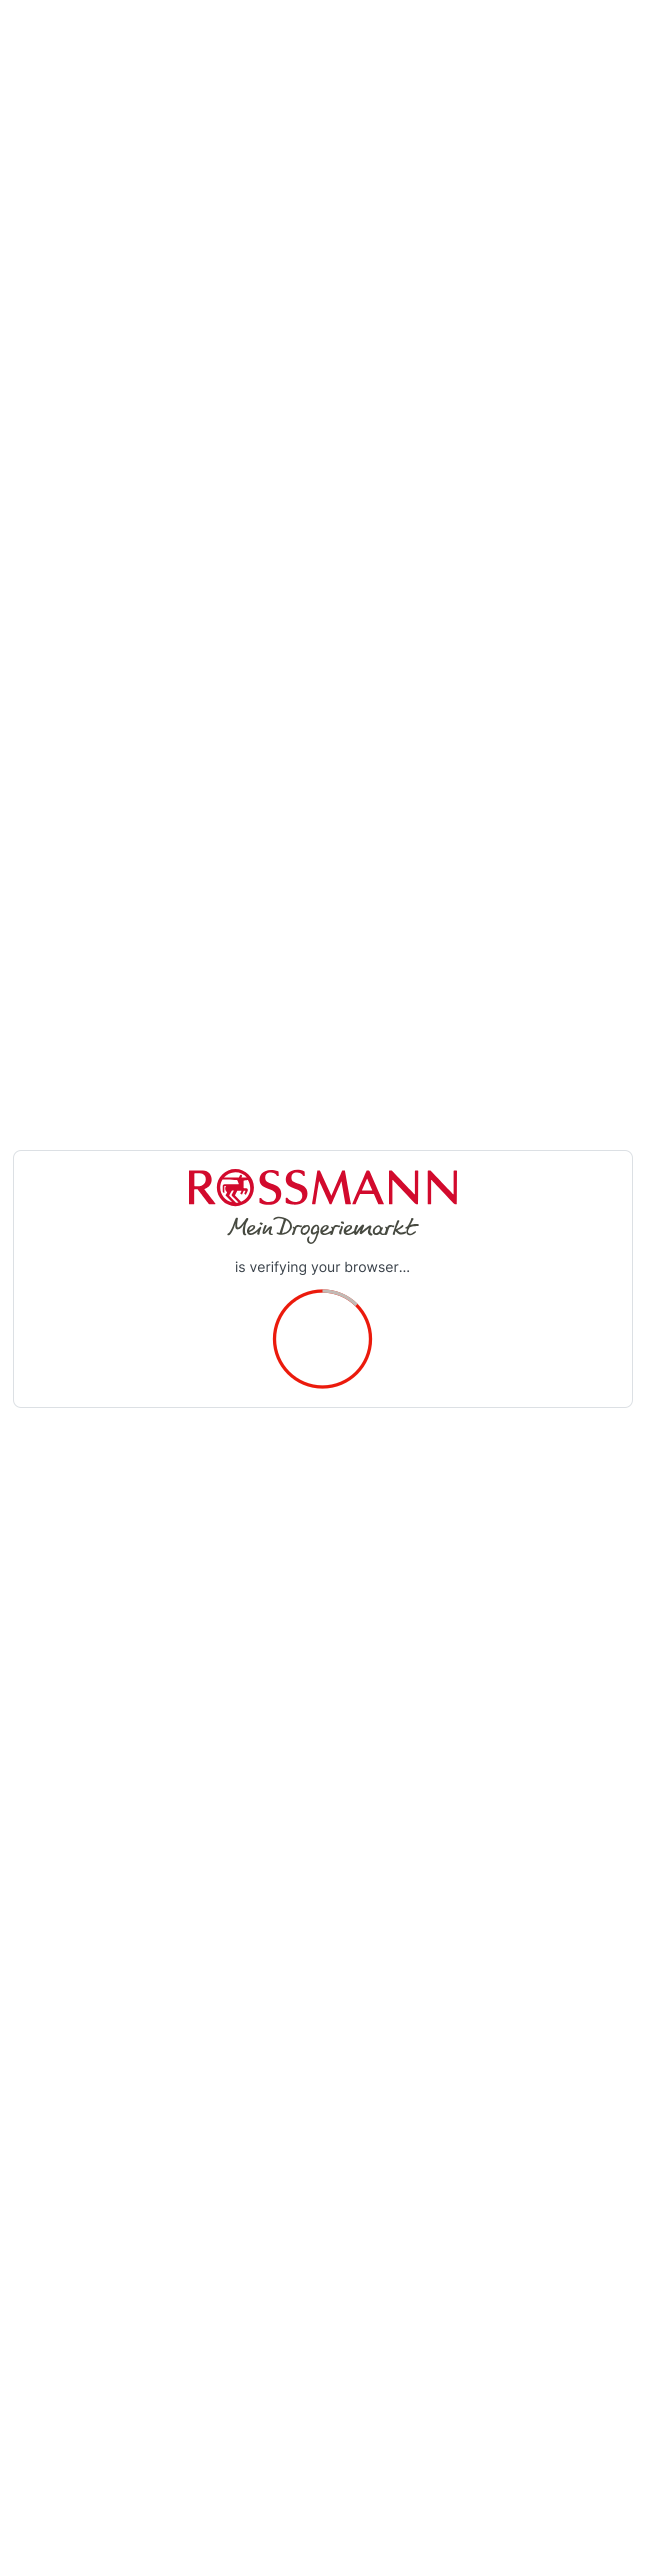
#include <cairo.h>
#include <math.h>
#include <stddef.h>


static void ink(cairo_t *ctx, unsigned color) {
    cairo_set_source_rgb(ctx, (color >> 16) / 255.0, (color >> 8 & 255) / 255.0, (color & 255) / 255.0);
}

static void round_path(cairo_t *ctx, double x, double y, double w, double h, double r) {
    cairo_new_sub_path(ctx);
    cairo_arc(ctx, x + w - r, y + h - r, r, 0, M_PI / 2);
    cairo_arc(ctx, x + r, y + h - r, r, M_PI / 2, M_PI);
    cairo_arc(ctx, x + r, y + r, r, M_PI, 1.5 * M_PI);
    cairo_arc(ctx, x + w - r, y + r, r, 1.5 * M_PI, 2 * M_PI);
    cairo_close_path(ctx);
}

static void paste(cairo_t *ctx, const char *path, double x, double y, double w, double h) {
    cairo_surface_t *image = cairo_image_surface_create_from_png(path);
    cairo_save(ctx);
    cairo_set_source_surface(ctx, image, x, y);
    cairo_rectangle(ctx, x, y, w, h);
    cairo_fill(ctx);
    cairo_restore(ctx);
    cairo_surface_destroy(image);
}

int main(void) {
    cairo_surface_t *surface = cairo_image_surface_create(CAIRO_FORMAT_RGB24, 646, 2557);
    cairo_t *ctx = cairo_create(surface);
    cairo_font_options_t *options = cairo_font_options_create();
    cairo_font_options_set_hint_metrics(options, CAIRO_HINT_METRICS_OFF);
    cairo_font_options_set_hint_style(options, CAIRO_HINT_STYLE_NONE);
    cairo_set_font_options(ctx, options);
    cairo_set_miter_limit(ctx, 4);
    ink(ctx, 0xFFFFFF);
    cairo_paint(ctx);
    round_path(ctx, 13.5, 1150.5, 619, 257, 7.5);
    ink(ctx, 0xDCE0E4);
    cairo_set_line_width(ctx, 1);
    cairo_stroke(ctx);
    paste(ctx, "media/1.png", 189, 1169, 268, 75);
    cairo_select_font_face(ctx, "Inter", CAIRO_FONT_SLANT_NORMAL, CAIRO_FONT_WEIGHT_NORMAL);
    cairo_set_font_size(ctx, 14);
    ink(ctx, 0x3A424A);
    cairo_move_to(ctx, 235, 1272);
    cairo_show_text(ctx, "is verifying your browser...");
    cairo_new_path(ctx);
    cairo_move_to(ctx, 274.5, 1339);
    cairo_curve_to(ctx, 274.5, 1312.5, 296, 1291, 322.5, 1291);
    cairo_curve_to(ctx, 349, 1291, 370.5, 1312.5, 370.5, 1339);
    cairo_curve_to(ctx, 370.5, 1365.5, 349, 1387, 322.5, 1387);
    cairo_curve_to(ctx, 296, 1387, 274.5, 1365.5, 274.5, 1339);
    cairo_close_path(ctx);
    ink(ctx, 0xEB1A0C);
    cairo_set_line_width(ctx, 3.3);
    cairo_stroke(ctx);
    cairo_new_path(ctx);
    cairo_move_to(ctx, 356.5, 1305);
    cairo_curve_to(ctx, 347.5, 1296, 335.5, 1291, 322.5, 1291);
    ink(ctx, 0xC2BAB5);
    cairo_stroke(ctx);
    cairo_surface_write_to_png(surface, "image.png");
    cairo_font_options_destroy(options);
    cairo_destroy(ctx);
    cairo_surface_destroy(surface);
    return 0;
}
